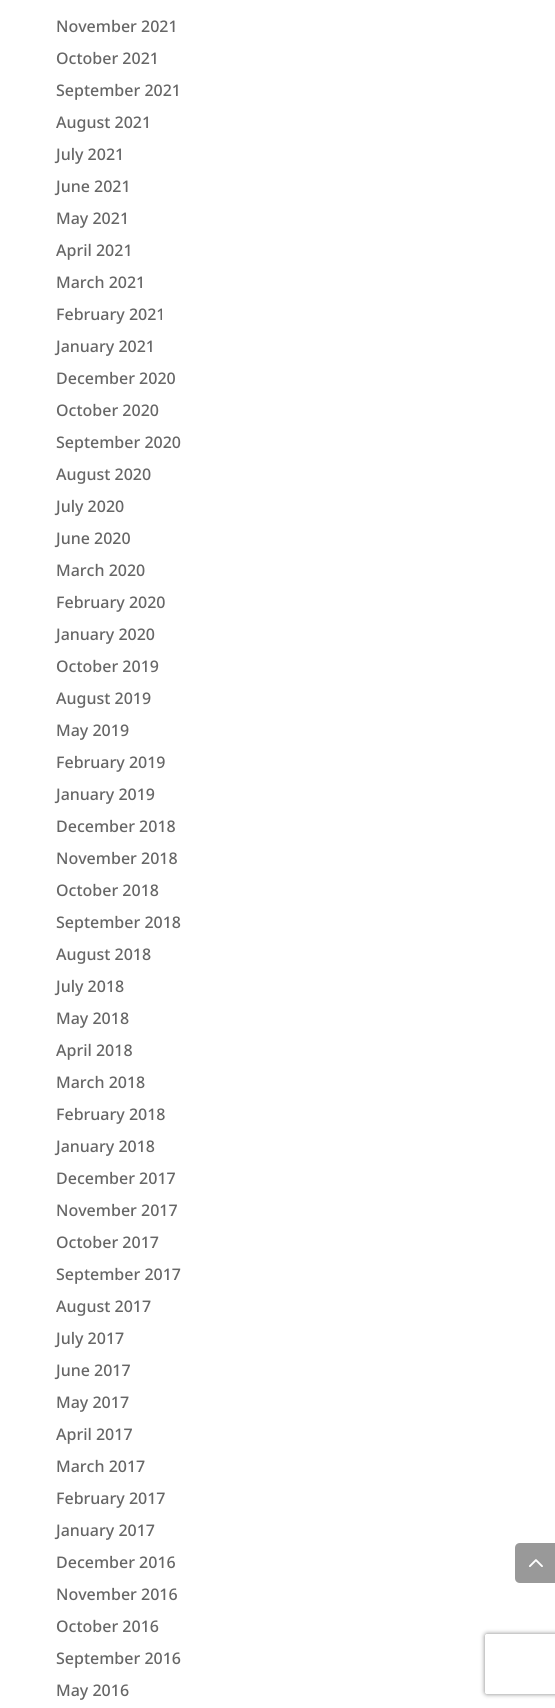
#include <cairo.h>
#include <math.h>
#include <stddef.h>

typedef struct { double x, y; const char *s; } line_t;

static void ink(cairo_t *ctx, unsigned color) {
    cairo_set_source_rgb(ctx, (color >> 16) / 255.0, (color >> 8 & 255) / 255.0, (color & 255) / 255.0);
}

static void round_path(cairo_t *ctx, double x, double y, double w, double h, double r) {
    cairo_new_sub_path(ctx);
    cairo_arc(ctx, x + w - r, y + h - r, r, 0, M_PI / 2);
    cairo_arc(ctx, x + r, y + h - r, r, M_PI / 2, M_PI);
    cairo_arc(ctx, x + r, y + r, r, M_PI, 1.5 * M_PI);
    cairo_arc(ctx, x + w - r, y + r, r, 1.5 * M_PI, 2 * M_PI);
    cairo_close_path(ctx);
}

static void blur_box(cairo_t *ctx, double x, double y, double w, double h, double r, double blur, double alpha) {
    cairo_push_group_with_content(ctx, CAIRO_CONTENT_ALPHA);
    cairo_set_operator(ctx, CAIRO_OPERATOR_SOURCE);
    for (int i = 15; i >= -15 && fmin(w, h) + blur * i / 3 > 0; i -= 2) {
        double e = blur * i / 6;
        cairo_set_source_rgba(ctx, 0, 0, 0, alpha * erfc((i - 1) / 8.5) / 2);
        round_path(ctx, x - e, y - e, w + 2 * e, h + 2 * e, fmax(0, fmin(r + e + blur * .6, fmin(w, h) / 2 + e)));
        cairo_fill(ctx);
    }
    cairo_pattern_t *soft = cairo_pop_group(ctx);
    cairo_mask(ctx, soft);
    cairo_pattern_destroy(soft);
}

static void paste(cairo_t *ctx, const char *path, double x, double y, double w, double h) {
    cairo_surface_t *image = cairo_image_surface_create_from_png(path);
    cairo_save(ctx);
    cairo_set_source_surface(ctx, image, x, y);
    cairo_rectangle(ctx, x, y, w, h);
    cairo_fill(ctx);
    cairo_restore(ctx);
    cairo_surface_destroy(image);
}

int main(void) {
    cairo_surface_t *surface = cairo_image_surface_create(CAIRO_FORMAT_RGB24, 555, 1708);
    cairo_t *ctx = cairo_create(surface);
    cairo_font_options_t *options = cairo_font_options_create();
    cairo_font_options_set_hint_metrics(options, CAIRO_HINT_METRICS_OFF);
    cairo_font_options_set_hint_style(options, CAIRO_HINT_STYLE_NONE);
    cairo_set_font_options(ctx, options);
    cairo_set_miter_limit(ctx, 4);
    ink(ctx, 0xFFFFFF);
    cairo_paint(ctx);
    cairo_select_font_face(ctx, "Noto Sans Medium", CAIRO_FONT_SLANT_NORMAL, CAIRO_FONT_WEIGHT_NORMAL);
    cairo_set_font_size(ctx, 16);
    ink(ctx, 0x666666);
    {
        static const line_t items[] = {
            {56, 32, "November 2021"},
            {56, 64, "October 2021"},
            {56, 96, "September 2021"},
            {56, 128, "August 2021"},
            {56, 160, "July 2021"},
            {56, 192, "June 2021"},
            {56, 224, "May 2021"},
            {56, 256, "April 2021"},
            {56, 288, "March 2021"},
            {56, 320, "February 2021"},
            {56, 352, "January 2021"},
            {56, 384, "December 2020"},
            {56, 416, "October 2020"},
            {56, 448, "September 2020"},
            {56, 480, "August 2020"},
            {56, 512, "July 2020"},
            {56, 544, "June 2020"},
            {56, 576, "March 2020"},
            {56, 608, "February 2020"},
            {56, 640, "January 2020"},
            {56, 672, "October 2019"},
            {56, 704, "August 2019"},
            {56, 736, "May 2019"},
            {56, 768, "February 2019"},
            {56, 800, "January 2019"},
            {56, 832, "December 2018"},
            {56, 864, "November 2018"},
            {56, 896, "October 2018"},
            {56, 928, "September 2018"},
            {56, 960, "August 2018"},
            {56, 992, "July 2018"},
            {56, 1024, "May 2018"},
            {56, 1056, "April 2018"},
            {56, 1088, "March 2018"},
            {56, 1120, "February 2018"},
            {56, 1152, "January 2018"},
            {56, 1184, "December 2017"},
            {56, 1216, "November 2017"},
            {56, 1248, "October 2017"},
            {56, 1280, "September 2017"},
            {56, 1312, "August 2017"},
            {56, 1344, "July 2017"},
            {56, 1376, "June 2017"},
            {56, 1408, "May 2017"},
            {56, 1440, "April 2017"},
            {56, 1472, "March 2017"},
            {56, 1504, "February 2017"},
            {56, 1536, "January 2017"},
            {56, 1568, "December 2016"},
            {56, 1600, "November 2016"},
            {56, 1632, "October 2016"},
            {56, 1664, "September 2016"},
            {56, 1696, "May 2016"},
        };
        for (size_t i = 0; i < sizeof items / sizeof *items; i++) {
            cairo_move_to(ctx, items[i].x, items[i].y);
            cairo_show_text(ctx, items[i].s);
        }
    }
    ink(ctx, 0x999999);
    cairo_new_path(ctx);
    cairo_move_to(ctx, 520, 1543);
    cairo_line_to(ctx, 555, 1543);
    cairo_line_to(ctx, 555, 1583);
    cairo_line_to(ctx, 520, 1583);
    cairo_curve_to(ctx, 517, 1583, 515, 1581, 515, 1578);
    cairo_line_to(ctx, 515, 1548);
    cairo_curve_to(ctx, 515, 1545, 517, 1543, 520, 1543);
    cairo_close_path(ctx);
    cairo_fill(ctx);
    paste(ctx, "media/1.png", 529, 1559, 14, 8);
    cairo_save(ctx);
    cairo_set_fill_rule(ctx, CAIRO_FILL_RULE_EVEN_ODD);
    cairo_new_path(ctx);
    cairo_move_to(ctx, 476, 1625);
    cairo_line_to(ctx, 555, 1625);
    cairo_line_to(ctx, 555, 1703);
    cairo_line_to(ctx, 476, 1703);
    cairo_close_path(ctx);
    cairo_move_to(ctx, 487, 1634);
    cairo_line_to(ctx, 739, 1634);
    cairo_curve_to(ctx, 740, 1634, 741, 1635, 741, 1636);
    cairo_line_to(ctx, 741, 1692);
    cairo_curve_to(ctx, 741, 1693, 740, 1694, 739, 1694);
    cairo_line_to(ctx, 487, 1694);
    cairo_curve_to(ctx, 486, 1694, 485, 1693, 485, 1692);
    cairo_line_to(ctx, 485, 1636);
    cairo_curve_to(ctx, 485, 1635, 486, 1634, 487, 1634);
    cairo_close_path(ctx);
    cairo_clip(ctx);
    ink(ctx, 0x808080);
    blur_box(ctx, 485, 1634, 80, 60, 2, 2.5, 1);
    cairo_restore(ctx);
    cairo_surface_write_to_png(surface, "image.png");
    cairo_font_options_destroy(options);
    cairo_destroy(ctx);
    cairo_surface_destroy(surface);
    return 0;
}
